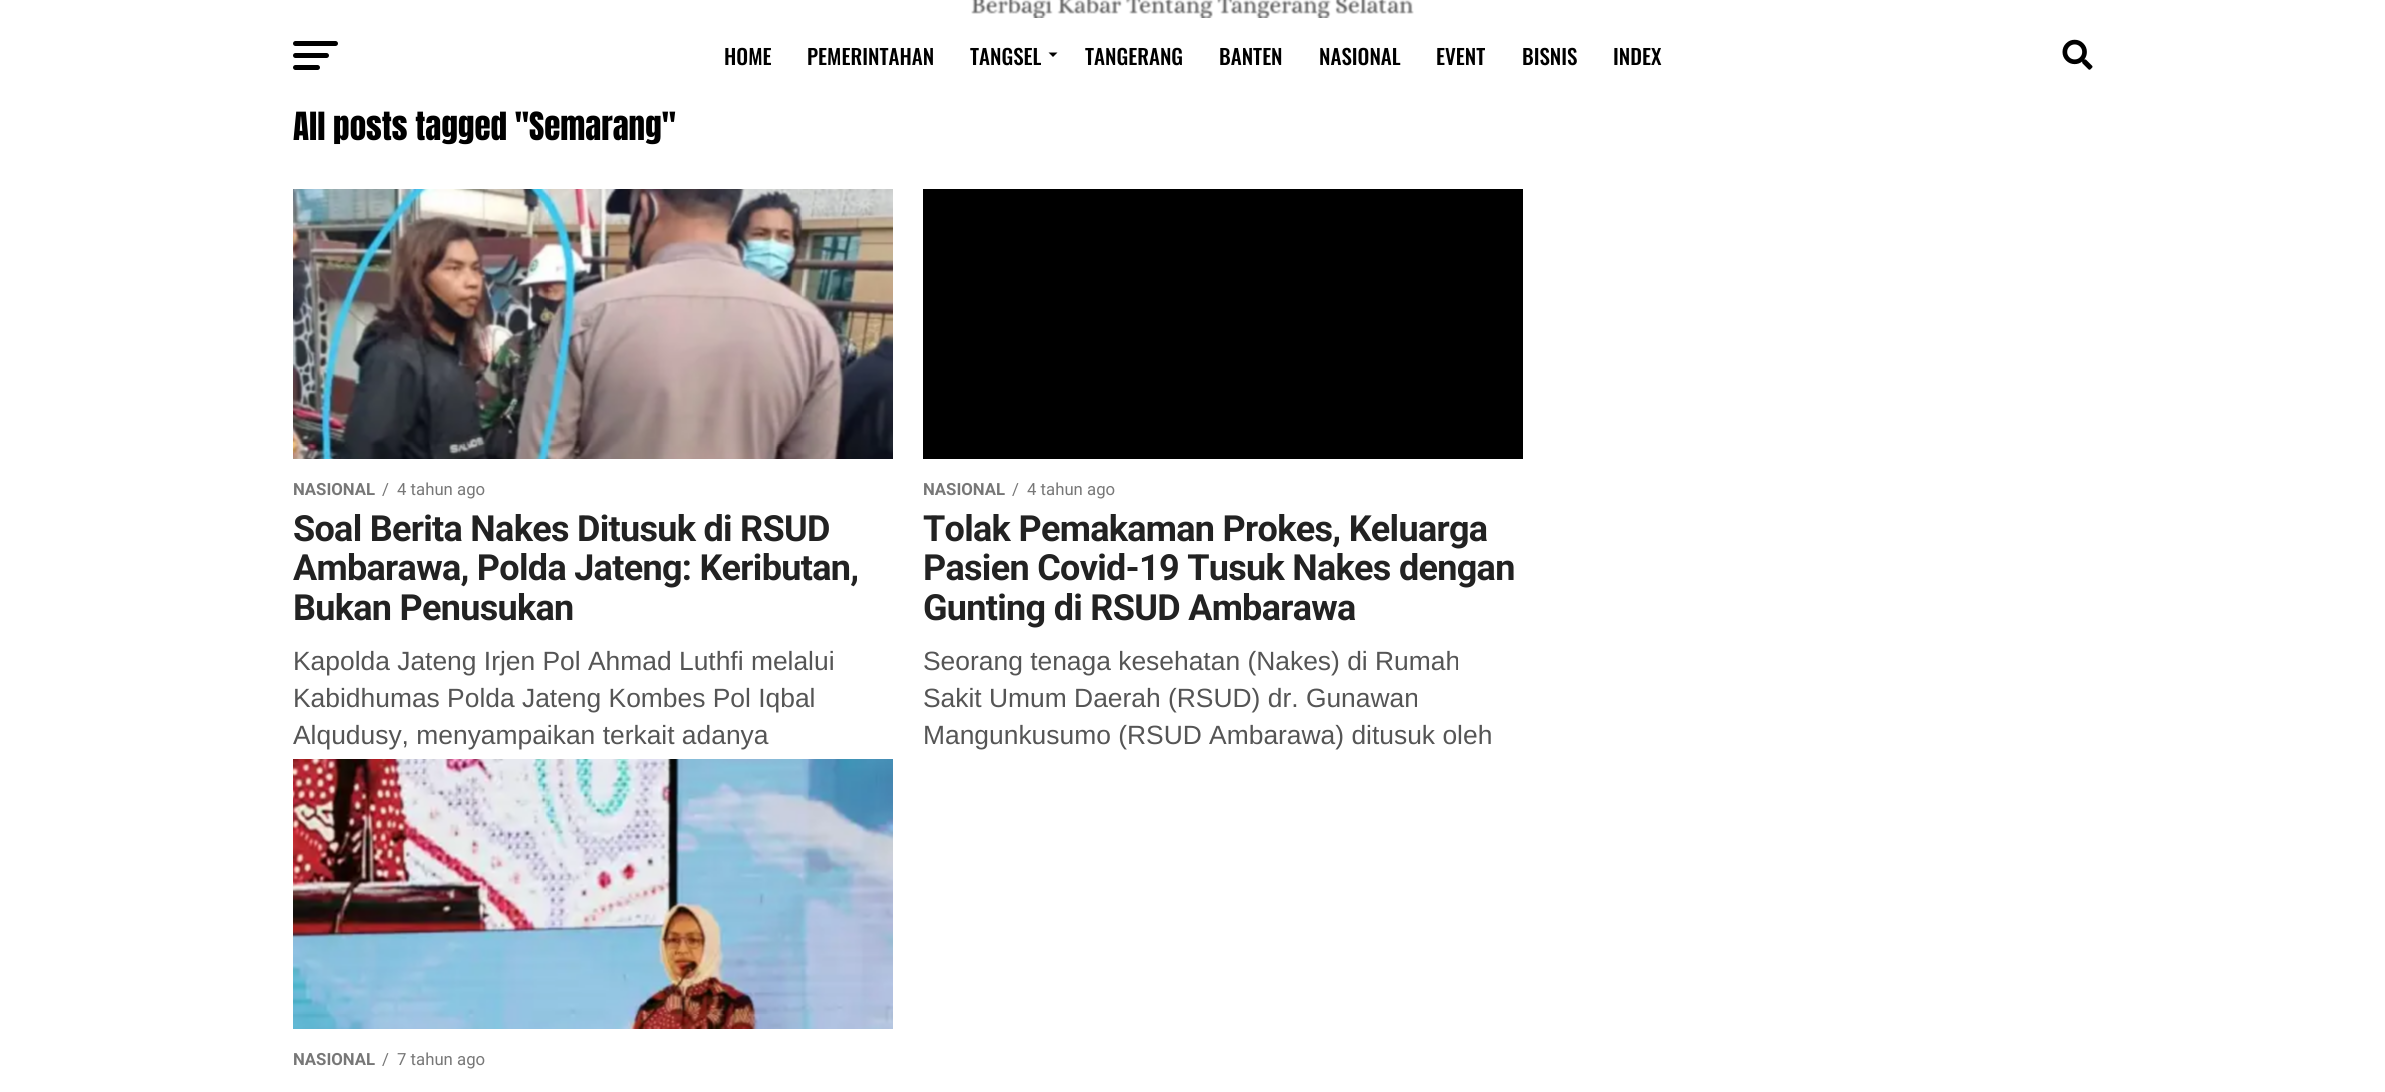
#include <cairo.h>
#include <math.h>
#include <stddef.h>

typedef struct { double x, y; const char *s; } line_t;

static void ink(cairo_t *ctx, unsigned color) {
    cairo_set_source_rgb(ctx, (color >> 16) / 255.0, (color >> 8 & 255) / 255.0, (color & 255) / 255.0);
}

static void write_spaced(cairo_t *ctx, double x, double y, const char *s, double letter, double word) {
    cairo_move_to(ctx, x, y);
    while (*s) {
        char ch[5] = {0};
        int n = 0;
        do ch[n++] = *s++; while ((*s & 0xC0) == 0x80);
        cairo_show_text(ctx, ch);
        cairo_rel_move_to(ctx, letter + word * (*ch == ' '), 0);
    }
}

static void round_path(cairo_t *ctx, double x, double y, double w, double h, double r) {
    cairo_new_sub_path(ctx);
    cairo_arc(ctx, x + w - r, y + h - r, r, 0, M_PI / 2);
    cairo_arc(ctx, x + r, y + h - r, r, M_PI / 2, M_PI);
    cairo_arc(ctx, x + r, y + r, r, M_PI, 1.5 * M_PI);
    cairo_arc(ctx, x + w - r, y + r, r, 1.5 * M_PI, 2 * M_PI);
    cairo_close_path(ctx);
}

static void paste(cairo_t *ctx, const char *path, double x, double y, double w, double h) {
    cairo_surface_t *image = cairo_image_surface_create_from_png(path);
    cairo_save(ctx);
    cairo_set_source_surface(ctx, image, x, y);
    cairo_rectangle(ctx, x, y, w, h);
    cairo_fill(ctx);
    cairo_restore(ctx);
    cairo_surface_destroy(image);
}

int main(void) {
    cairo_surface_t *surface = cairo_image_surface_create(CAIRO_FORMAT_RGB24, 2385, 1092);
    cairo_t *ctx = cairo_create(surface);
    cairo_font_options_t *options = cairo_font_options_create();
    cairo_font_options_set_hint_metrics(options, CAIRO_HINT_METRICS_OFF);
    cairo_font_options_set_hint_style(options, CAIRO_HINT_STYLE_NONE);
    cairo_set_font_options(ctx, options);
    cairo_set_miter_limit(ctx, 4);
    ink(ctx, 0xFFFFFF);
    cairo_paint(ctx);
    paste(ctx, "media/1.png", 971, 0, 443, 18);
    ink(ctx, 0x000000);
    round_path(ctx, 293, 41, 45, 5, 2.5);
    cairo_fill(ctx);
    round_path(ctx, 293, 53, 36, 5, 2.5);
    cairo_fill(ctx);
    round_path(ctx, 293, 65, 27, 5, 2.5);
    cairo_fill(ctx);
    cairo_select_font_face(ctx, "Oswald Medium", CAIRO_FONT_SLANT_NORMAL, CAIRO_FONT_WEIGHT_NORMAL);
    cairo_set_font_size(ctx, 21);
    {
        static const line_t items[] = {
            {724, 65, "HOME"},
            {807, 65, "PEMERINTAHAN"},
            {970, 65, "TANGSEL"},
        };
        for (size_t i = 0; i < sizeof items / sizeof *items; i++) {
            cairo_move_to(ctx, items[i].x, items[i].y);
            cairo_show_text(ctx, items[i].s);
        }
    }
    cairo_new_path(ctx);
    cairo_move_to(ctx, 1048.5, 52.5);
    cairo_line_to(ctx, 1057.5, 52.5);
    cairo_line_to(ctx, 1053, 57);
    cairo_close_path(ctx);
    cairo_fill(ctx);
    {
        static const line_t items[] = {
            {1085, 65, "TANGERANG"},
            {1219, 65, "BANTEN"},
            {1319, 65, "NASIONAL"},
            {1436, 65, "EVENT"},
            {1522, 65, "BISNIS"},
            {1613, 65, "INDEX"},
        };
        for (size_t i = 0; i < sizeof items / sizeof *items; i++) {
            cairo_move_to(ctx, items[i].x, items[i].y);
            cairo_show_text(ctx, items[i].s);
        }
    }
    paste(ctx, "media/2.png", 2062, 39, 31, 31);
    cairo_select_font_face(ctx, "Anton", CAIRO_FONT_SLANT_NORMAL, CAIRO_FONT_WEIGHT_NORMAL);
    cairo_set_font_size(ctx, 33);
    cairo_move_to(ctx, 293, 140);
    cairo_show_text(ctx, "All posts tagged \"Semarang\"");
    paste(ctx, "media/3.png", 293, 189, 600, 270);
    cairo_select_font_face(ctx, "Roboto", CAIRO_FONT_SLANT_NORMAL, CAIRO_FONT_WEIGHT_BOLD);
    cairo_set_font_size(ctx, 16.75);
    ink(ctx, 0x777777);
    cairo_move_to(ctx, 293, 495);
    cairo_show_text(ctx, "NASIONAL");
    cairo_select_font_face(ctx, "Roboto", CAIRO_FONT_SLANT_NORMAL, CAIRO_FONT_WEIGHT_NORMAL);
    cairo_move_to(ctx, 382, 495);
    cairo_show_text(ctx, "/");
    cairo_move_to(ctx, 397, 495);
    cairo_show_text(ctx, "4 tahun ago");
    cairo_select_font_face(ctx, "Roboto", CAIRO_FONT_SLANT_NORMAL, CAIRO_FONT_WEIGHT_BOLD);
    cairo_set_font_size(ctx, 36);
    ink(ctx, 0x222222);
    {
        static const line_t items[] = {
            {293, 541, "Soal Berita Nakes Ditusuk di RSUD"},
            {293, 580, "Ambarawa, Polda Jateng: Keributan,"},
            {293, 620, "Bukan Penusukan"},
        };
        for (size_t i = 0; i < sizeof items / sizeof *items; i++) {
            write_spaced(ctx, items[i].x, items[i].y, items[i].s, -0.7, 0);
        }
    }
    cairo_select_font_face(ctx, "Liberation Sans", CAIRO_FONT_SLANT_NORMAL, CAIRO_FONT_WEIGHT_NORMAL);
    cairo_set_font_size(ctx, 26.4);
    ink(ctx, 0x555555);
    {
        static const line_t items[] = {
            {293, 670, "Kapolda Jateng Irjen Pol Ahmad Luthfi melalui"},
            {293, 707, "Kabidhumas Polda Jateng Kombes Pol Iqbal"},
            {293, 744, "Alqudusy, menyampaikan terkait adanya"},
        };
        for (size_t i = 0; i < sizeof items / sizeof *items; i++) {
            cairo_move_to(ctx, items[i].x, items[i].y);
            cairo_show_text(ctx, items[i].s);
        }
    }
    ink(ctx, 0x000000);
    cairo_rectangle(ctx, 923, 189, 600, 270);
    cairo_fill(ctx);
    cairo_select_font_face(ctx, "Roboto", CAIRO_FONT_SLANT_NORMAL, CAIRO_FONT_WEIGHT_BOLD);
    cairo_set_font_size(ctx, 16.75);
    ink(ctx, 0x777777);
    cairo_move_to(ctx, 923, 495);
    cairo_show_text(ctx, "NASIONAL");
    cairo_select_font_face(ctx, "Roboto", CAIRO_FONT_SLANT_NORMAL, CAIRO_FONT_WEIGHT_NORMAL);
    cairo_move_to(ctx, 1012, 495);
    cairo_show_text(ctx, "/");
    cairo_move_to(ctx, 1027, 495);
    cairo_show_text(ctx, "4 tahun ago");
    cairo_select_font_face(ctx, "Roboto", CAIRO_FONT_SLANT_NORMAL, CAIRO_FONT_WEIGHT_BOLD);
    cairo_set_font_size(ctx, 36);
    ink(ctx, 0x222222);
    {
        static const line_t items[] = {
            {923, 541, "Tolak Pemakaman Prokes, Keluarga"},
            {923, 580, "Pasien Covid-19 Tusuk Nakes dengan"},
            {923, 620, "Gunting di RSUD Ambarawa"},
        };
        for (size_t i = 0; i < sizeof items / sizeof *items; i++) {
            write_spaced(ctx, items[i].x, items[i].y, items[i].s, -0.7, 0);
        }
    }
    cairo_select_font_face(ctx, "Liberation Sans", CAIRO_FONT_SLANT_NORMAL, CAIRO_FONT_WEIGHT_NORMAL);
    cairo_set_font_size(ctx, 26.4);
    ink(ctx, 0x555555);
    {
        static const line_t items[] = {
            {923, 670, "Seorang tenaga kesehatan (Nakes) di Rumah"},
            {923, 707, "Sakit Umum Daerah (RSUD) dr. Gunawan"},
            {923, 744, "Mangunkusumo (RSUD Ambarawa) ditusuk oleh"},
        };
        for (size_t i = 0; i < sizeof items / sizeof *items; i++) {
            cairo_move_to(ctx, items[i].x, items[i].y);
            cairo_show_text(ctx, items[i].s);
        }
    }
    paste(ctx, "media/4.png", 293, 759, 600, 270);
    cairo_select_font_face(ctx, "Roboto", CAIRO_FONT_SLANT_NORMAL, CAIRO_FONT_WEIGHT_BOLD);
    cairo_set_font_size(ctx, 16.75);
    ink(ctx, 0x777777);
    cairo_move_to(ctx, 293, 1065);
    cairo_show_text(ctx, "NASIONAL");
    cairo_select_font_face(ctx, "Roboto", CAIRO_FONT_SLANT_NORMAL, CAIRO_FONT_WEIGHT_NORMAL);
    cairo_move_to(ctx, 382, 1065);
    cairo_show_text(ctx, "/");
    cairo_move_to(ctx, 397, 1065);
    cairo_show_text(ctx, "7 tahun ago");
    cairo_surface_write_to_png(surface, "image.png");
    cairo_font_options_destroy(options);
    cairo_destroy(ctx);
    cairo_surface_destroy(surface);
    return 0;
}
